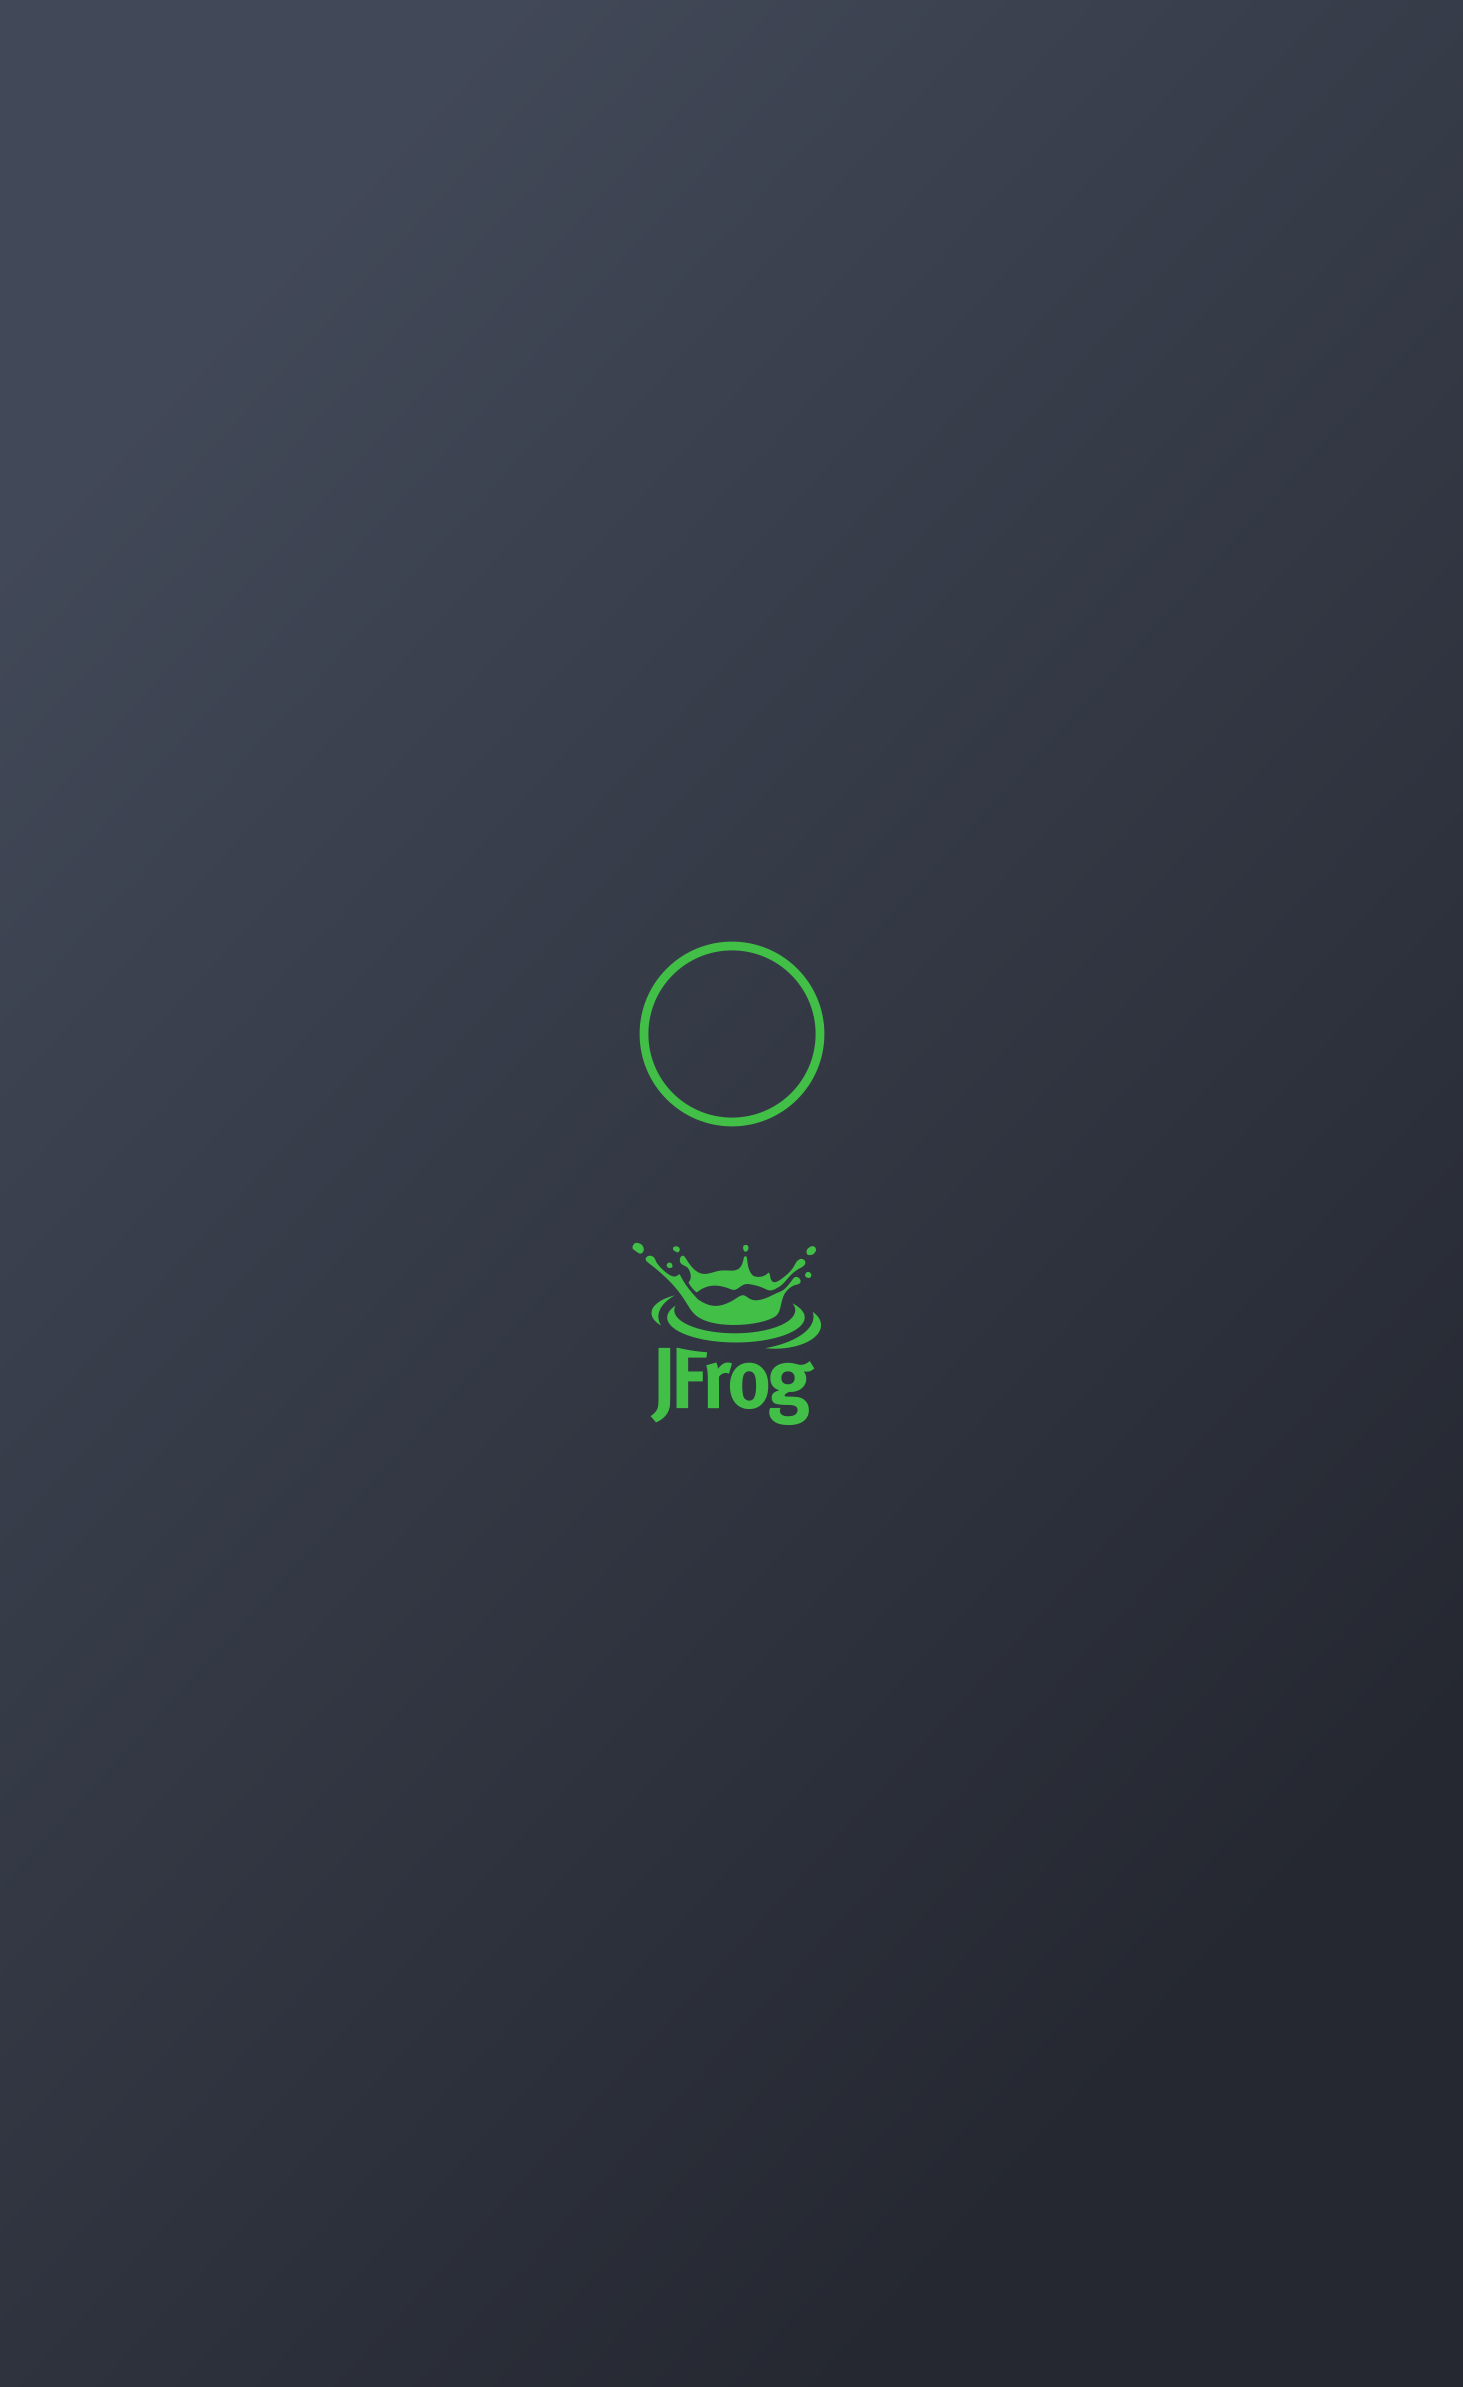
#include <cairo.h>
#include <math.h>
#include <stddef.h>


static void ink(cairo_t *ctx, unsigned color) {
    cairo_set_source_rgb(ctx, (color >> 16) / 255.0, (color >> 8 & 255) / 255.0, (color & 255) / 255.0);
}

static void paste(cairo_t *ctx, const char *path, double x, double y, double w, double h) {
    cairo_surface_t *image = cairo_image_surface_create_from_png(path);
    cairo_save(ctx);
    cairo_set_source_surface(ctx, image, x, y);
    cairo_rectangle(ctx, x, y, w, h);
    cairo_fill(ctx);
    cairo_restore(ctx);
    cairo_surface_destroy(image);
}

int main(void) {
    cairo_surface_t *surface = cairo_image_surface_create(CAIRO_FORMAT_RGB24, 1463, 2387);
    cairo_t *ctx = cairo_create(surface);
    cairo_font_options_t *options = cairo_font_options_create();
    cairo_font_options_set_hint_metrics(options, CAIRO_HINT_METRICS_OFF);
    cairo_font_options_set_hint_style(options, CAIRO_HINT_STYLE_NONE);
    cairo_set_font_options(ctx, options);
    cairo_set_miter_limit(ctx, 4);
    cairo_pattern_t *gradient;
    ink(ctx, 0xFFFFFF);
    cairo_paint(ctx);
    gradient = cairo_pattern_create_linear(-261, 285, 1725, 2103);
    cairo_pattern_add_color_stop_rgba(gradient, 0.14, 0.255, 0.282, 0.341, 1);
    cairo_pattern_add_color_stop_rgba(gradient, 0.83, 0.145, 0.157, 0.192, 1);
    cairo_set_source(ctx, gradient);
    cairo_pattern_destroy(gradient);
    cairo_rectangle(ctx, 0, 0, 1463, 2387);
    cairo_fill(ctx);
    cairo_arc(ctx, 732, 1034, 88, 0, 2 * M_PI);
    ink(ctx, 0x41BF47);
    cairo_set_line_width(ctx, 8.8);
    cairo_stroke(ctx);
    paste(ctx, "media/1.png", 632, 1242, 190, 184);
    cairo_surface_write_to_png(surface, "image.png");
    cairo_font_options_destroy(options);
    cairo_destroy(ctx);
    cairo_surface_destroy(surface);
    return 0;
}
